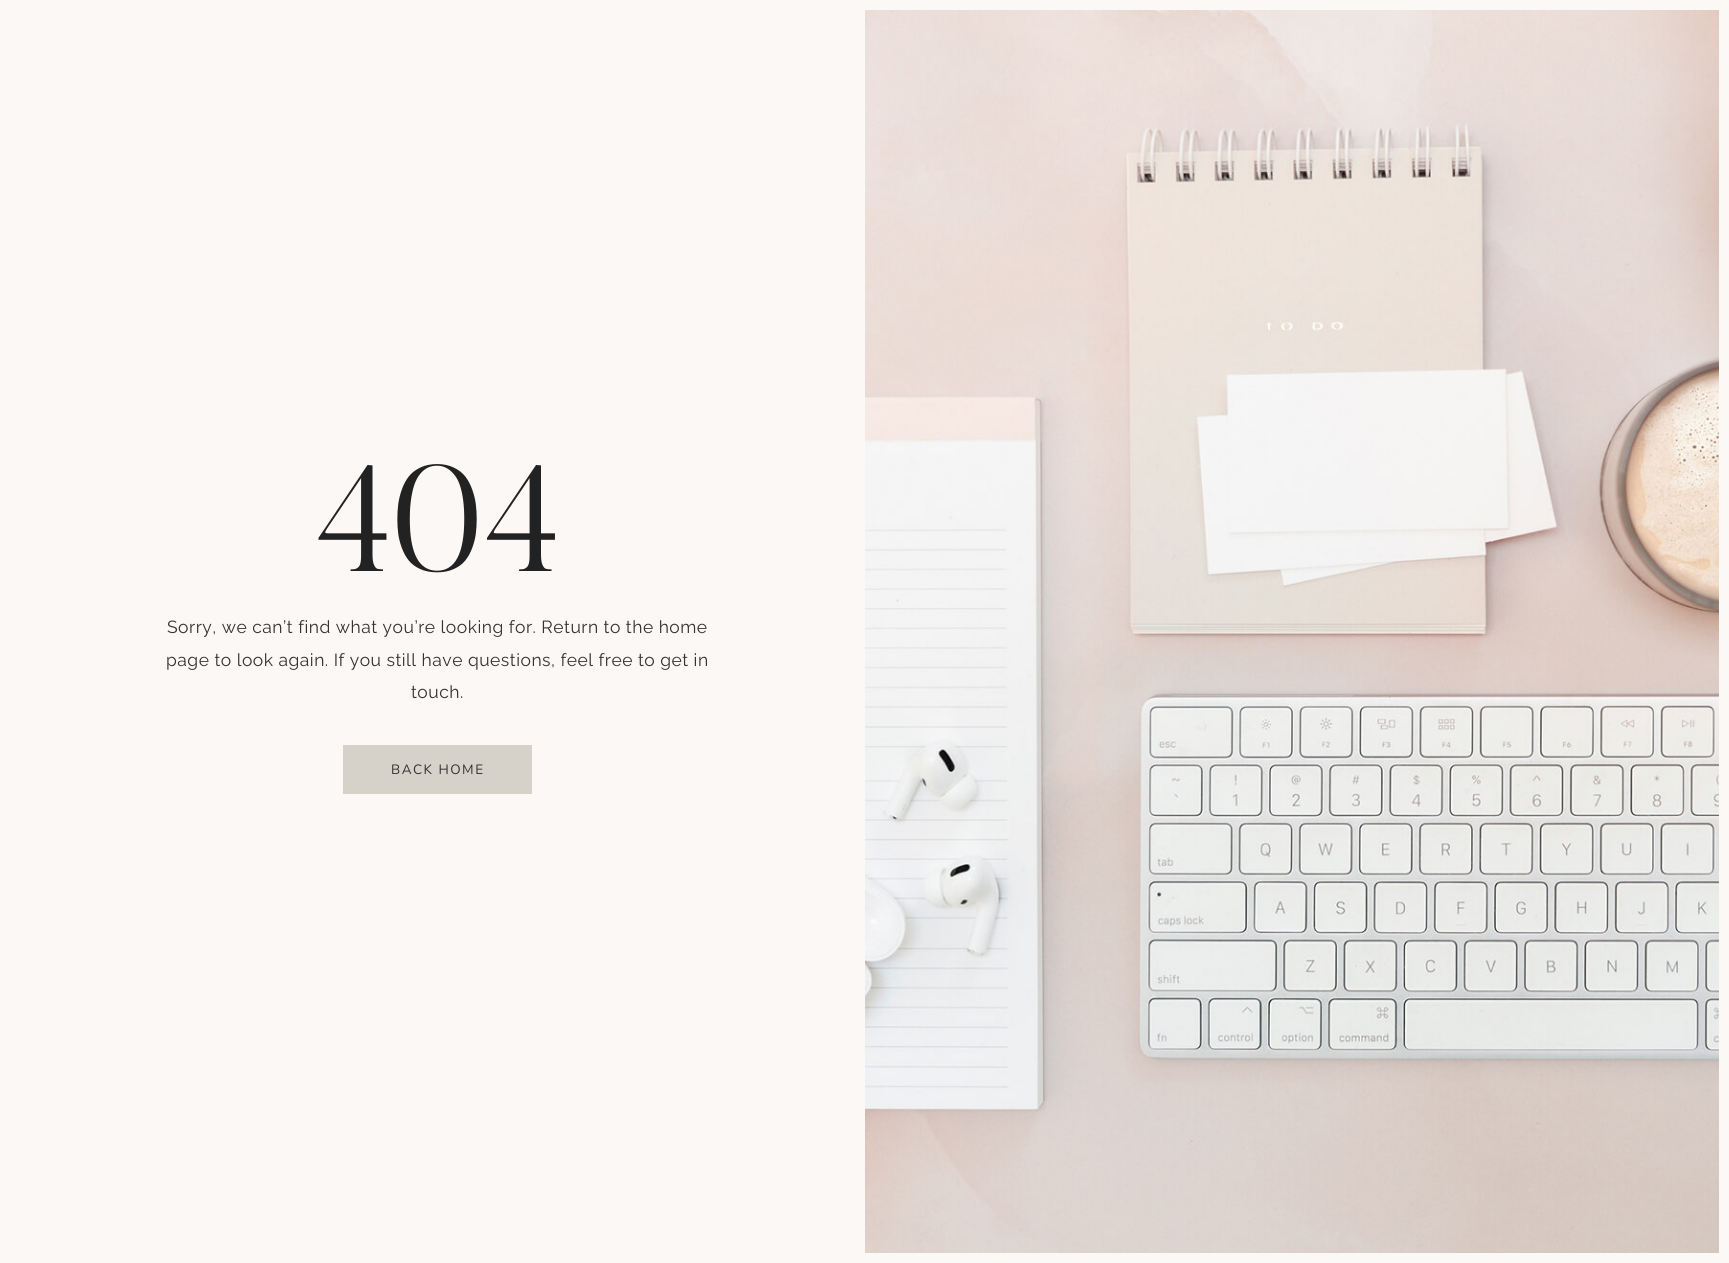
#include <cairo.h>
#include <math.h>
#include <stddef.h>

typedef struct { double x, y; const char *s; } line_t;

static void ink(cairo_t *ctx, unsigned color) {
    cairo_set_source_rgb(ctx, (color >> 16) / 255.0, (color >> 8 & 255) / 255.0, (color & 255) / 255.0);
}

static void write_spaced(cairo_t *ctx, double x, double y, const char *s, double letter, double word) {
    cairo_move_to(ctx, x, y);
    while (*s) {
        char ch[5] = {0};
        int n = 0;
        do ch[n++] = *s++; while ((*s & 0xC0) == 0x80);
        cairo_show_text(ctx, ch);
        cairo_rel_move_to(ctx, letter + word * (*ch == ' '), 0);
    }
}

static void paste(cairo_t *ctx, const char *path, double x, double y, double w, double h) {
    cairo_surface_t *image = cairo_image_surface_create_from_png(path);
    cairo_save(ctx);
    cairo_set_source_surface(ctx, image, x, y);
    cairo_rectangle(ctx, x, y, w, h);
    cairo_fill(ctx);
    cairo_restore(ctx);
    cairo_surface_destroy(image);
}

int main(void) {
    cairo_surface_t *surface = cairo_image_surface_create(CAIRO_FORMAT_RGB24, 1729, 1263);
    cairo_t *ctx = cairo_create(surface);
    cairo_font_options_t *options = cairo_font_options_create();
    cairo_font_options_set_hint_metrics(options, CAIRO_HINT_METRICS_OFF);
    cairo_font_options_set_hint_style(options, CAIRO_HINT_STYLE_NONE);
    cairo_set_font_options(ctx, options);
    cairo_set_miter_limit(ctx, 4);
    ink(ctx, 0xFBF8F5);
    cairo_paint(ctx);
    cairo_select_font_face(ctx, "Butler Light", CAIRO_FONT_SLANT_NORMAL, CAIRO_FONT_WEIGHT_NORMAL);
    cairo_set_font_size(ctx, 150);
    ink(ctx, 0x222222);
    cairo_move_to(ctx, 314, 571);
    cairo_show_text(ctx, "404");
    cairo_select_font_face(ctx, "Raleway Thin", CAIRO_FONT_SLANT_NORMAL, CAIRO_FONT_WEIGHT_NORMAL);
    cairo_set_font_size(ctx, 17.5);
    ink(ctx, 0x333333);
    {
        static const line_t items[] = {
            {167, 633, "Sorry, we can’t find what you’re looking for. Return to the home"},
            {166, 666, "page to look again. If you still have questions, feel free to get in"},
            {411, 698, "touch."},
        };
        for (size_t i = 0; i < sizeof items / sizeof *items; i++) {
            write_spaced(ctx, items[i].x, items[i].y, items[i].s, 0.5, 0);
        }
    }
    ink(ctx, 0xD6D2C9);
    cairo_rectangle(ctx, 343, 745, 189, 49);
    cairo_fill(ctx);
    cairo_select_font_face(ctx, "Nunito", CAIRO_FONT_SLANT_NORMAL, CAIRO_FONT_WEIGHT_NORMAL);
    cairo_set_font_size(ctx, 13.5);
    ink(ctx, 0x333333);
    write_spaced(ctx, 391, 774, "BACK HOME", 1.5, 0);
    paste(ctx, "media/1.png", 865, 10, 854, 1243);
    cairo_surface_write_to_png(surface, "image.png");
    cairo_font_options_destroy(options);
    cairo_destroy(ctx);
    cairo_surface_destroy(surface);
    return 0;
}
